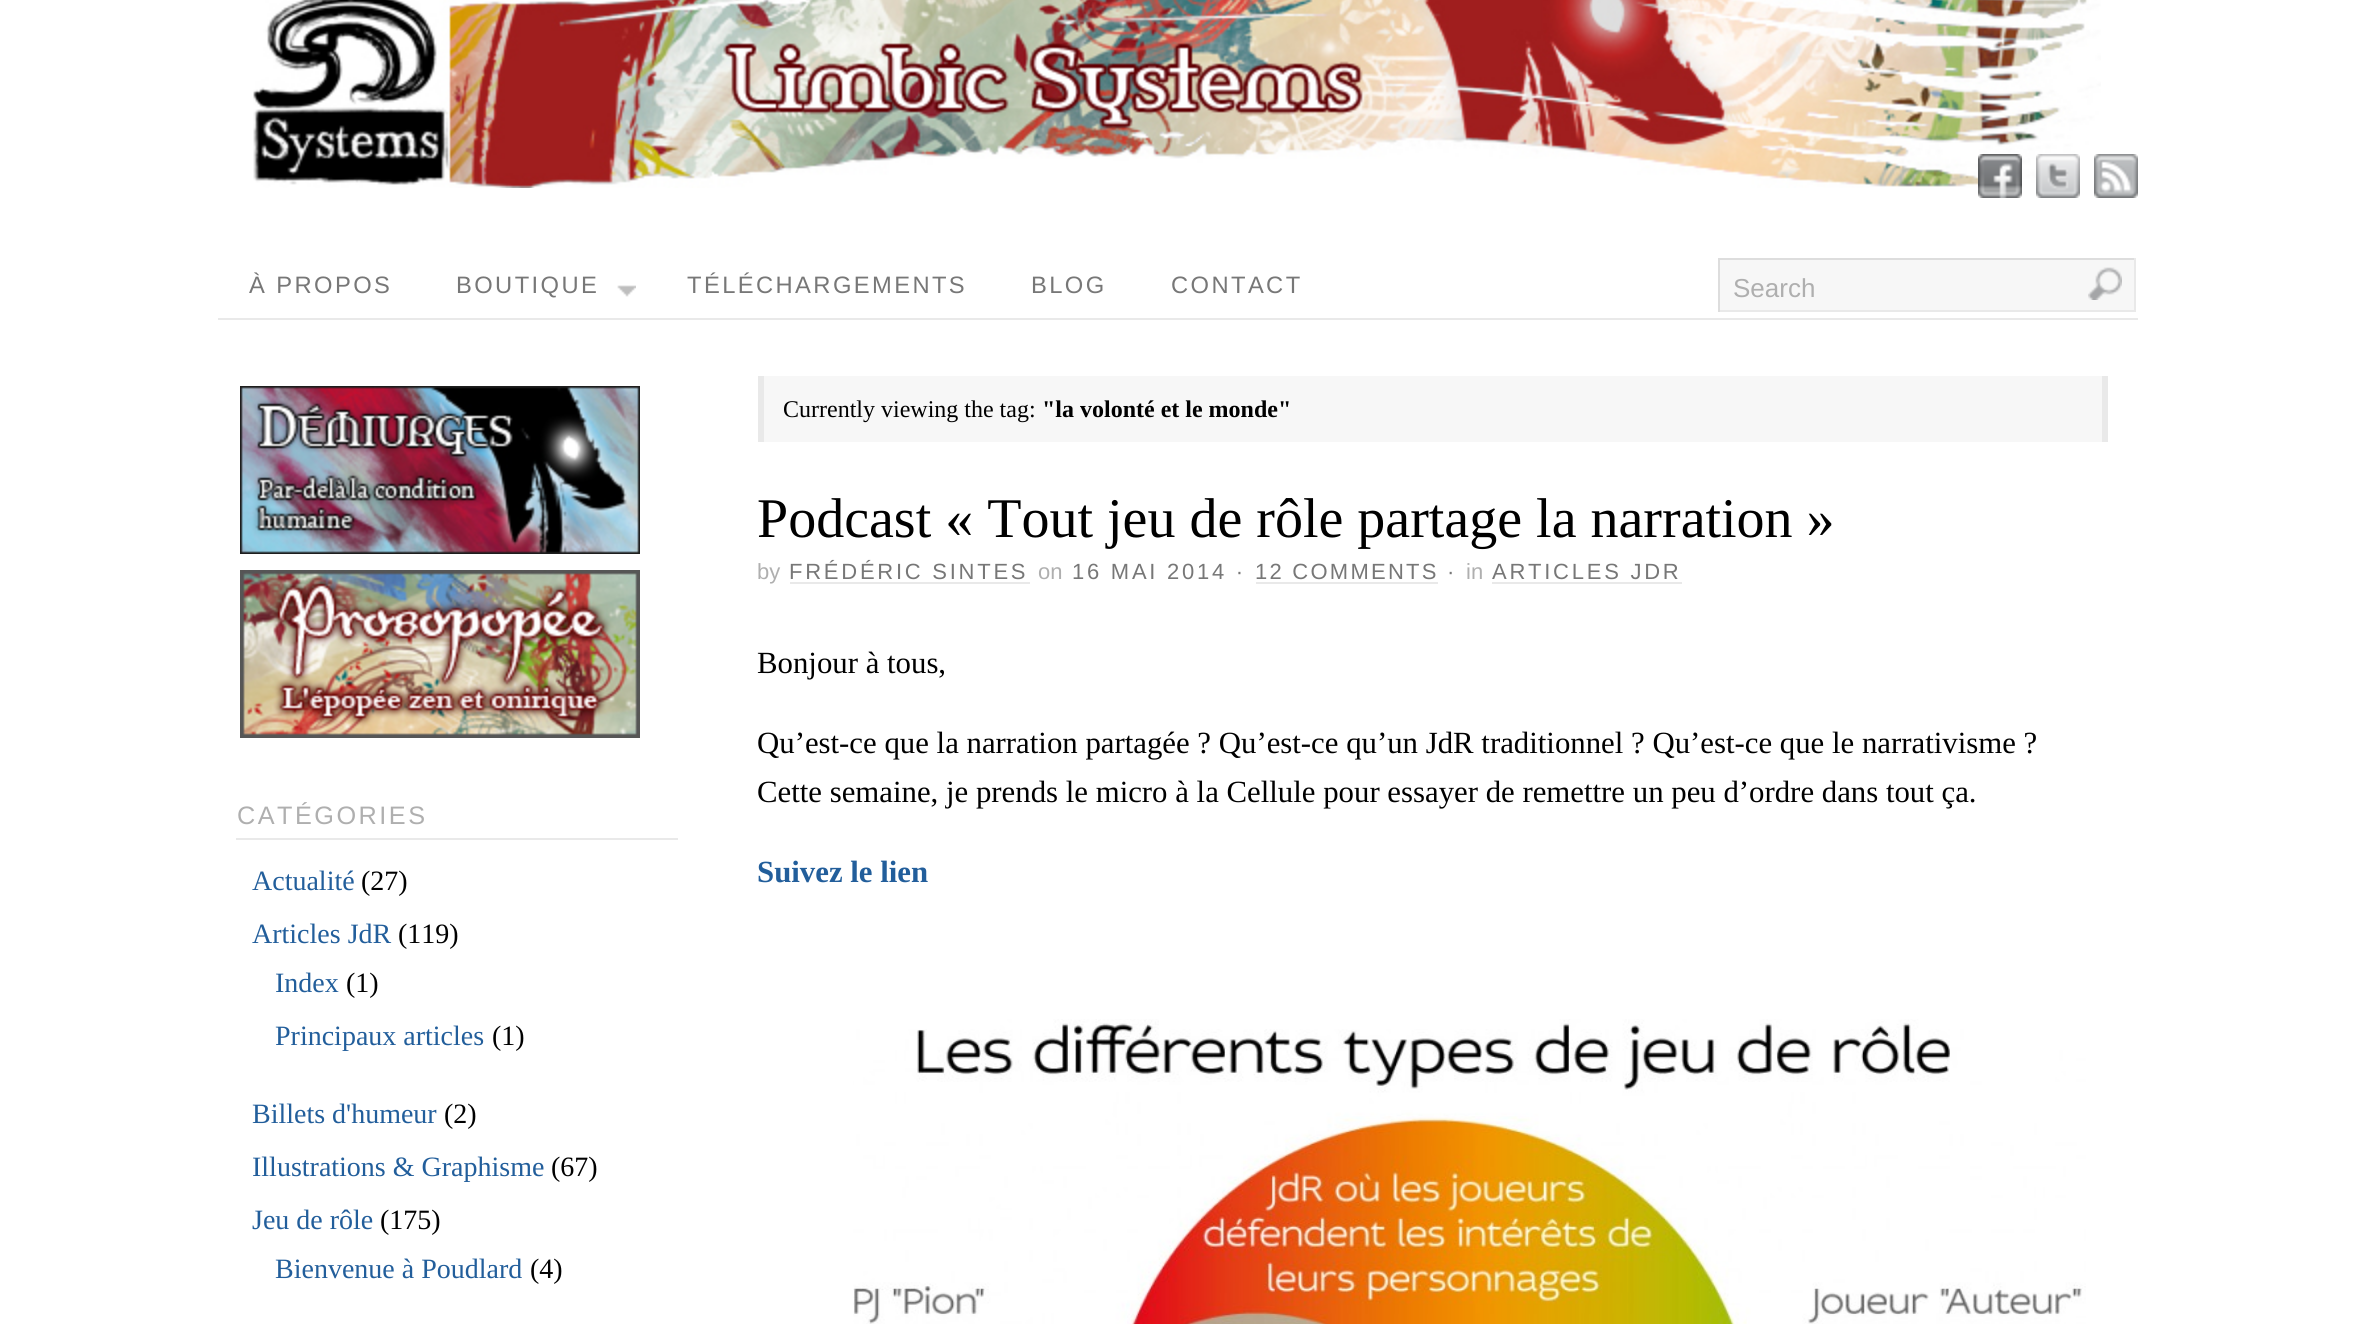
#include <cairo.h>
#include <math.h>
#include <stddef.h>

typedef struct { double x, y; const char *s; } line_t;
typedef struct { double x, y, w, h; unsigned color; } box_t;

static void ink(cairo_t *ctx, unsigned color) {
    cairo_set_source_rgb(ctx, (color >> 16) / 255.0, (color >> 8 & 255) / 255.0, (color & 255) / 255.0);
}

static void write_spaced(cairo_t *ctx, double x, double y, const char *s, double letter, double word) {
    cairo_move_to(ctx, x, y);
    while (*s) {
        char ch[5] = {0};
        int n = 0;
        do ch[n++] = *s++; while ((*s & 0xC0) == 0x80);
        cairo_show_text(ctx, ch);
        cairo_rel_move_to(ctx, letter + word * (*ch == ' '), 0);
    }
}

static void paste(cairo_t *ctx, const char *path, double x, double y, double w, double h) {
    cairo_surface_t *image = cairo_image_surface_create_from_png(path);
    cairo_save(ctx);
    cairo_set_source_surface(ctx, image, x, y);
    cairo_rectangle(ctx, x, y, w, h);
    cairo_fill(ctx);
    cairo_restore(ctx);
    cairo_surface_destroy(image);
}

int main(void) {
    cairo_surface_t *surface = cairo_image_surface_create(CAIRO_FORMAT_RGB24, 2353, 1324);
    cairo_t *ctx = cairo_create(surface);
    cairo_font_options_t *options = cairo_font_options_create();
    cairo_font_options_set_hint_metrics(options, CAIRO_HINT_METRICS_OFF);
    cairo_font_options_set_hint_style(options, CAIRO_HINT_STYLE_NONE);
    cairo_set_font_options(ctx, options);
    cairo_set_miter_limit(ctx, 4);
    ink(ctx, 0xFFFFFF);
    cairo_paint(ctx);
    paste(ctx, "media/1.png", 253, 0, 1848, 188);
    paste(ctx, "media/2.png", 1978, 154, 44, 44);
    paste(ctx, "media/3.png", 2036, 154, 44, 44);
    paste(ctx, "media/4.png", 2094, 154, 44, 44);
    ink(ctx, 0xE9E9E9);
    cairo_rectangle(ctx, 218, 318, 1920, 2);
    cairo_fill(ctx);
    cairo_select_font_face(ctx, "Liberation Sans", CAIRO_FONT_SLANT_NORMAL, CAIRO_FONT_WEIGHT_NORMAL);
    cairo_set_font_size(ctx, 23.75);
    ink(ctx, 0x777777);
    write_spaced(ctx, 249, 293, "À PROPOS", 2.4, 0);
    write_spaced(ctx, 456, 293, "BOUTIQUE", 2.4, 0);
    paste(ctx, "media/5.png", 617, 285, 19, 12);
    {
        static const line_t items[] = {
            {687, 293, "TÉLÉCHARGEMENTS"},
            {1031, 293, "BLOG"},
            {1171, 293, "CONTACT"},
        };
        for (size_t i = 0; i < sizeof items / sizeof *items; i++) {
            write_spaced(ctx, items[i].x, items[i].y, items[i].s, 2.4, 0);
        }
    }
    {
        static const box_t items[] = {
            {1720, 260, 414, 50, 0xF7F7F7},
            {1718, 258, 418, 2, 0xDDDDDD},
            {2134, 258, 2, 54, 0xE9E9E9},
            {1718, 310, 418, 2, 0xE9E9E9},
            {1718, 258, 2, 54, 0xDDDDDD},
        };
        for (size_t i = 0; i < sizeof items / sizeof *items; i++) {
            ink(ctx, items[i].color);
            cairo_rectangle(ctx, items[i].x, items[i].y, items[i].w, items[i].h);
            cairo_fill(ctx);
        }
    }
    cairo_set_font_size(ctx, 26);
    ink(ctx, 0xAFAFAF);
    cairo_move_to(ctx, 1733, 297);
    cairo_show_text(ctx, "Search");
    paste(ctx, "media/6.png", 2088, 267, 34, 33);
    {
        static const box_t items[] = {
            {764, 376, 1338, 66, 0xF7F7F7},
            {2102, 376, 6, 66, 0xE9E9E9},
            {758, 376, 6, 66, 0xE9E9E9},
        };
        for (size_t i = 0; i < sizeof items / sizeof *items; i++) {
            ink(ctx, items[i].color);
            cairo_rectangle(ctx, items[i].x, items[i].y, items[i].w, items[i].h);
            cairo_fill(ctx);
        }
    }
    cairo_select_font_face(ctx, "Liberation Serif", CAIRO_FONT_SLANT_NORMAL, CAIRO_FONT_WEIGHT_NORMAL);
    cairo_set_font_size(ctx, 24);
    ink(ctx, 0x000000);
    cairo_move_to(ctx, 783, 417);
    cairo_show_text(ctx, "Currently viewing the tag:");
    cairo_select_font_face(ctx, "Liberation Serif", CAIRO_FONT_SLANT_NORMAL, CAIRO_FONT_WEIGHT_BOLD);
    cairo_move_to(ctx, 1042, 417);
    cairo_show_text(ctx, "\"la volonté et le monde\"");
    cairo_select_font_face(ctx, "Liberation Serif", CAIRO_FONT_SLANT_NORMAL, CAIRO_FONT_WEIGHT_NORMAL);
    cairo_set_font_size(ctx, 56);
    cairo_move_to(ctx, 757, 537);
    cairo_show_text(ctx, "Podcast « Tout jeu de rôle partage la narration »");
    cairo_select_font_face(ctx, "Liberation Sans", CAIRO_FONT_SLANT_NORMAL, CAIRO_FONT_WEIGHT_NORMAL);
    cairo_set_font_size(ctx, 22);
    ink(ctx, 0xAFAFAF);
    cairo_move_to(ctx, 757, 579);
    cairo_show_text(ctx, "by");
    ink(ctx, 0x777777);
    write_spaced(ctx, 789, 579, "FRÉDÉRIC SINTES", 2.75, 0);
    ink(ctx, 0xE9E9E9);
    cairo_rectangle(ctx, 790, 582, 240, 2);
    cairo_fill(ctx);
    ink(ctx, 0xAFAFAF);
    cairo_move_to(ctx, 1038, 579);
    cairo_show_text(ctx, "on");
    ink(ctx, 0x777777);
    write_spaced(ctx, 1072, 579, "16 MAI 2014 ·", 2.75, 0);
    write_spaced(ctx, 1255, 579, "12 COMMENTS", 2.25, 0);
    ink(ctx, 0xE9E9E9);
    cairo_rectangle(ctx, 1256, 582, 182, 2);
    cairo_fill(ctx);
    ink(ctx, 0x777777);
    write_spaced(ctx, 1447, 579, "·", 2.75, 0);
    ink(ctx, 0xAFAFAF);
    cairo_move_to(ctx, 1466, 579);
    cairo_show_text(ctx, "in");
    ink(ctx, 0x777777);
    write_spaced(ctx, 1492, 579, "ARTICLES JDR", 2.75, 0);
    ink(ctx, 0xE9E9E9);
    cairo_rectangle(ctx, 1492, 582, 190, 2);
    cairo_fill(ctx);
    cairo_select_font_face(ctx, "Liberation Serif", CAIRO_FONT_SLANT_NORMAL, CAIRO_FONT_WEIGHT_NORMAL);
    cairo_set_font_size(ctx, 30.8);
    ink(ctx, 0x000000);
    {
        static const line_t items[] = {
            {757, 673, "Bonjour à tous,"},
            {757, 753, "Qu’est-ce que la narration partagée ? Qu’est-ce qu’un JdR traditionnel ? Qu’est-ce que le narrativisme ?"},
            {757, 802, "Cette semaine, je prends le micro à la Cellule pour essayer de remettre un peu d’ordre dans tout ça."},
        };
        for (size_t i = 0; i < sizeof items / sizeof *items; i++) {
            cairo_move_to(ctx, items[i].x, items[i].y);
            cairo_show_text(ctx, items[i].s);
        }
    }
    cairo_select_font_face(ctx, "Liberation Serif", CAIRO_FONT_SLANT_NORMAL, CAIRO_FONT_WEIGHT_BOLD);
    ink(ctx, 0x225E9B);
    cairo_move_to(ctx, 757, 882);
    cairo_show_text(ctx, "Suivez le lien");
    paste(ctx, "media/7.png", 853, 1019, 1233, 305);
    paste(ctx, "media/8.png", 240, 386, 400, 168);
    paste(ctx, "media/9.png", 240, 570, 400, 168);
    ink(ctx, 0xE9E9E9);
    cairo_rectangle(ctx, 236, 838, 442, 2);
    cairo_fill(ctx);
    cairo_select_font_face(ctx, "Liberation Sans", CAIRO_FONT_SLANT_NORMAL, CAIRO_FONT_WEIGHT_NORMAL);
    cairo_set_font_size(ctx, 25.25);
    ink(ctx, 0xAFAFAF);
    write_spaced(ctx, 237, 824, "CATÉGORIES", 2.5, 0);
    cairo_select_font_face(ctx, "Liberation Serif", CAIRO_FONT_SLANT_NORMAL, CAIRO_FONT_WEIGHT_NORMAL);
    cairo_set_font_size(ctx, 28);
    ink(ctx, 0x225E9B);
    cairo_move_to(ctx, 252, 890);
    cairo_show_text(ctx, "Actualité");
    ink(ctx, 0x000000);
    cairo_move_to(ctx, 361, 890);
    cairo_show_text(ctx, "(27)");
    ink(ctx, 0x225E9B);
    cairo_move_to(ctx, 252, 943);
    cairo_show_text(ctx, "Articles JdR");
    ink(ctx, 0x000000);
    cairo_move_to(ctx, 398, 943);
    cairo_show_text(ctx, "(119)");
    ink(ctx, 0x225E9B);
    cairo_move_to(ctx, 275, 992);
    cairo_show_text(ctx, "Index");
    ink(ctx, 0x000000);
    cairo_move_to(ctx, 346, 992);
    cairo_show_text(ctx, "(1)");
    ink(ctx, 0x225E9B);
    cairo_move_to(ctx, 275, 1045);
    cairo_show_text(ctx, "Principaux articles");
    ink(ctx, 0x000000);
    cairo_move_to(ctx, 492, 1045);
    cairo_show_text(ctx, "(1)");
    ink(ctx, 0x225E9B);
    cairo_move_to(ctx, 252, 1123);
    cairo_show_text(ctx, "Billets d'humeur");
    ink(ctx, 0x000000);
    cairo_move_to(ctx, 444, 1123);
    cairo_show_text(ctx, "(2)");
    ink(ctx, 0x225E9B);
    cairo_move_to(ctx, 252, 1176);
    cairo_show_text(ctx, "Illustrations & Graphisme");
    ink(ctx, 0x000000);
    cairo_move_to(ctx, 551, 1176);
    cairo_show_text(ctx, "(67)");
    ink(ctx, 0x225E9B);
    cairo_move_to(ctx, 252, 1229);
    cairo_show_text(ctx, "Jeu de rôle");
    ink(ctx, 0x000000);
    cairo_move_to(ctx, 380, 1229);
    cairo_show_text(ctx, "(175)");
    ink(ctx, 0x225E9B);
    cairo_move_to(ctx, 275, 1278);
    cairo_show_text(ctx, "Bienvenue à Poudlard");
    ink(ctx, 0x000000);
    cairo_move_to(ctx, 530, 1278);
    cairo_show_text(ctx, "(4)");
    cairo_surface_write_to_png(surface, "image.png");
    cairo_font_options_destroy(options);
    cairo_destroy(ctx);
    cairo_surface_destroy(surface);
    return 0;
}
